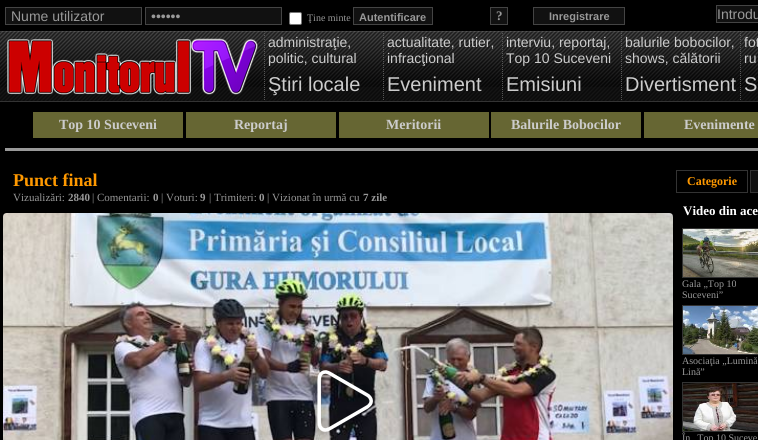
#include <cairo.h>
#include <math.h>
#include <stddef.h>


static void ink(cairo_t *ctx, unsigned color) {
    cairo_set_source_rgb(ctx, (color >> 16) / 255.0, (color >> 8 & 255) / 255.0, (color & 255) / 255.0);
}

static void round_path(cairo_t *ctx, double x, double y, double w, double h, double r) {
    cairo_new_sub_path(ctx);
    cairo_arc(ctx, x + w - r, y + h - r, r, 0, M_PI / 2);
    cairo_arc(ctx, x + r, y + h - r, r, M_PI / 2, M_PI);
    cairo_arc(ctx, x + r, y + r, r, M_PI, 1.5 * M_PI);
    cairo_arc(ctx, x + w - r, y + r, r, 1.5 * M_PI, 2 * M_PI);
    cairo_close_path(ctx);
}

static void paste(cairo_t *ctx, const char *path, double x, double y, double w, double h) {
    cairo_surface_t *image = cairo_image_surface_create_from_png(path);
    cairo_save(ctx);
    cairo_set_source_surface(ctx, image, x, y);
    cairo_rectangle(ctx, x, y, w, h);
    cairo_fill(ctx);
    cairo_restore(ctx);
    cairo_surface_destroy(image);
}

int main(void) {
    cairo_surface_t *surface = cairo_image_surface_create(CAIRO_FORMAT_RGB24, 758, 440);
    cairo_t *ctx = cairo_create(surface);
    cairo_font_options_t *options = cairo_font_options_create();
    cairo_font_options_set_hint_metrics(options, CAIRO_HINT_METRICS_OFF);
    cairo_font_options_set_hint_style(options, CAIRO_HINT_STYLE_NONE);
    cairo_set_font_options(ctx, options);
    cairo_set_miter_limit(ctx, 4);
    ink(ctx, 0x000000);
    cairo_paint(ctx);
    ink(ctx, 0x111111);
    cairo_rectangle(ctx, 5.5, 7.5, 136, 17);
    cairo_fill_preserve(ctx);
    ink(ctx, 0x444444);
    cairo_set_line_width(ctx, 1);
    cairo_stroke(ctx);
    cairo_select_font_face(ctx, "Liberation Sans", CAIRO_FONT_SLANT_NORMAL, CAIRO_FONT_WEIGHT_NORMAL);
    cairo_set_font_size(ctx, 14);
    ink(ctx, 0x999999);
    cairo_move_to(ctx, 11, 21);
    cairo_show_text(ctx, "Nume utilizator");
    ink(ctx, 0x111111);
    cairo_rectangle(ctx, 145.5, 7.5, 136, 17);
    cairo_fill_preserve(ctx);
    ink(ctx, 0x444444);
    cairo_stroke(ctx);
    ink(ctx, 0x999999);
    cairo_move_to(ctx, 151, 21);
    cairo_show_text(ctx, "••••••");
    ink(ctx, 0xFFFFFF);
    round_path(ctx, 289.5, 12.5, 12, 12, 1.5);
    cairo_fill_preserve(ctx);
    ink(ctx, 0x767676);
    cairo_stroke(ctx);
    cairo_select_font_face(ctx, "Liberation Serif", CAIRO_FONT_SLANT_NORMAL, CAIRO_FONT_WEIGHT_NORMAL);
    cairo_set_font_size(ctx, 10);
    ink(ctx, 0x999999);
    cairo_move_to(ctx, 307, 21);
    cairo_show_text(ctx, "Ţine minte");
    ink(ctx, 0x111111);
    cairo_rectangle(ctx, 353.5, 7.5, 79, 17);
    cairo_fill_preserve(ctx);
    ink(ctx, 0x444444);
    cairo_stroke(ctx);
    cairo_select_font_face(ctx, "Liberation Sans", CAIRO_FONT_SLANT_NORMAL, CAIRO_FONT_WEIGHT_BOLD);
    cairo_set_font_size(ctx, 11);
    ink(ctx, 0x999999);
    cairo_move_to(ctx, 359, 21);
    cairo_show_text(ctx, "Autentificare");
    ink(ctx, 0x111111);
    cairo_rectangle(ctx, 490.5, 7.5, 17, 17);
    cairo_fill_preserve(ctx);
    ink(ctx, 0x444444);
    cairo_stroke(ctx);
    cairo_select_font_face(ctx, "Liberation Serif", CAIRO_FONT_SLANT_NORMAL, CAIRO_FONT_WEIGHT_BOLD);
    cairo_set_font_size(ctx, 13);
    ink(ctx, 0x999999);
    cairo_move_to(ctx, 496, 20);
    cairo_show_text(ctx, "?");
    ink(ctx, 0x111111);
    cairo_rectangle(ctx, 533.5, 7.5, 91, 17);
    cairo_fill_preserve(ctx);
    ink(ctx, 0x444444);
    cairo_stroke(ctx);
    cairo_select_font_face(ctx, "Liberation Sans", CAIRO_FONT_SLANT_NORMAL, CAIRO_FONT_WEIGHT_BOLD);
    cairo_set_font_size(ctx, 11);
    ink(ctx, 0x999999);
    cairo_move_to(ctx, 549, 20);
    cairo_show_text(ctx, "Inregistrare");
    ink(ctx, 0x111111);
    cairo_rectangle(ctx, 716.5, 5.5, 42, 17);
    cairo_fill_preserve(ctx);
    ink(ctx, 0x444444);
    cairo_stroke(ctx);
    cairo_select_font_face(ctx, "Liberation Sans", CAIRO_FONT_SLANT_NORMAL, CAIRO_FONT_WEIGHT_NORMAL);
    cairo_set_font_size(ctx, 14);
    ink(ctx, 0x999999);
    cairo_move_to(ctx, 717, 19);
    cairo_show_text(ctx, "Introdu");
    paste(ctx, "media/1.png", 0, 31, 758, 70);
    ink(ctx, 0x333333);
    cairo_rectangle(ctx, 0, 101, 758, 1);
    cairo_fill(ctx);
    paste(ctx, "media/2.png", 7, 38, 251, 57);
    cairo_new_path(ctx);
    cairo_move_to(ctx, 264.5, 31);
    cairo_line_to(ctx, 264.5, 101);
    ink(ctx, 0x555555);
    cairo_set_dash(ctx, (double[]){1, 1}, 2, 0);
    cairo_stroke(ctx);
    ink(ctx, 0xCCCCCC);
    cairo_move_to(ctx, 268, 47);
    cairo_show_text(ctx, "administraţie,");
    cairo_move_to(ctx, 268, 63);
    cairo_show_text(ctx, "politic, cultural");
    cairo_set_font_size(ctx, 20);
    cairo_move_to(ctx, 268, 91);
    cairo_show_text(ctx, "Ştiri locale");
    cairo_new_path(ctx);
    cairo_move_to(ctx, 383.5, 31);
    cairo_line_to(ctx, 383.5, 101);
    ink(ctx, 0x555555);
    cairo_stroke(ctx);
    cairo_set_font_size(ctx, 14);
    ink(ctx, 0xCCCCCC);
    cairo_move_to(ctx, 387, 47);
    cairo_show_text(ctx, "actualitate, rutier,");
    cairo_move_to(ctx, 387, 63);
    cairo_show_text(ctx, "infracţional");
    cairo_set_font_size(ctx, 20);
    cairo_move_to(ctx, 387, 91);
    cairo_show_text(ctx, "Eveniment");
    cairo_new_path(ctx);
    cairo_move_to(ctx, 502.5, 31);
    cairo_line_to(ctx, 502.5, 101);
    ink(ctx, 0x555555);
    cairo_stroke(ctx);
    cairo_set_font_size(ctx, 14);
    ink(ctx, 0xCCCCCC);
    cairo_move_to(ctx, 506, 47);
    cairo_show_text(ctx, "interviu, reportaj,");
    cairo_move_to(ctx, 506, 63);
    cairo_show_text(ctx, "Top 10 Suceveni");
    cairo_set_font_size(ctx, 20);
    cairo_move_to(ctx, 506, 91);
    cairo_show_text(ctx, "Emisiuni");
    cairo_new_path(ctx);
    cairo_move_to(ctx, 621.5, 31);
    cairo_line_to(ctx, 621.5, 101);
    ink(ctx, 0x555555);
    cairo_stroke(ctx);
    cairo_set_font_size(ctx, 14);
    ink(ctx, 0xCCCCCC);
    cairo_move_to(ctx, 625, 47);
    cairo_show_text(ctx, "balurile bobocilor,");
    cairo_move_to(ctx, 625, 63);
    cairo_show_text(ctx, "shows, călătorii");
    cairo_set_font_size(ctx, 20);
    cairo_move_to(ctx, 625, 91);
    cairo_show_text(ctx, "Divertisment");
    cairo_new_path(ctx);
    cairo_move_to(ctx, 740.5, 31);
    cairo_line_to(ctx, 740.5, 101);
    ink(ctx, 0x555555);
    cairo_stroke(ctx);
    cairo_set_font_size(ctx, 14);
    ink(ctx, 0xCCCCCC);
    cairo_move_to(ctx, 744, 47);
    cairo_show_text(ctx, "fot");
    cairo_move_to(ctx, 744, 63);
    cairo_show_text(ctx, "ru");
    cairo_set_font_size(ctx, 20);
    cairo_move_to(ctx, 744, 91);
    cairo_show_text(ctx, "S");
    ink(ctx, 0x999999);
    cairo_rectangle(ctx, 5, 148, 753, 3);
    cairo_fill(ctx);
    ink(ctx, 0x666633);
    cairo_rectangle(ctx, 33, 112, 150, 26);
    cairo_fill(ctx);
    cairo_select_font_face(ctx, "Liberation Serif", CAIRO_FONT_SLANT_NORMAL, CAIRO_FONT_WEIGHT_BOLD);
    cairo_set_font_size(ctx, 14);
    ink(ctx, 0xCCCCCC);
    cairo_move_to(ctx, 59, 129);
    cairo_show_text(ctx, "Top 10 Suceveni");
    ink(ctx, 0x666633);
    cairo_rectangle(ctx, 186, 112, 150, 26);
    cairo_fill(ctx);
    ink(ctx, 0xCCCCCC);
    cairo_move_to(ctx, 234, 129);
    cairo_show_text(ctx, "Reportaj");
    ink(ctx, 0x666633);
    cairo_rectangle(ctx, 339, 112, 150, 26);
    cairo_fill(ctx);
    ink(ctx, 0xCCCCCC);
    cairo_move_to(ctx, 386, 129);
    cairo_show_text(ctx, "Meritorii");
    ink(ctx, 0x666633);
    cairo_rectangle(ctx, 491, 112, 150, 26);
    cairo_fill(ctx);
    ink(ctx, 0xCCCCCC);
    cairo_move_to(ctx, 511, 129);
    cairo_show_text(ctx, "Balurile Bobocilor");
    ink(ctx, 0x666633);
    cairo_rectangle(ctx, 644, 112, 114, 26);
    cairo_fill(ctx);
    ink(ctx, 0xCCCCCC);
    cairo_move_to(ctx, 684, 129);
    cairo_show_text(ctx, "Evenimente");
    cairo_set_font_size(ctx, 18);
    ink(ctx, 0xFF9900);
    cairo_move_to(ctx, 13, 186);
    cairo_show_text(ctx, "Punct final");
    cairo_select_font_face(ctx, "Liberation Serif", CAIRO_FONT_SLANT_NORMAL, CAIRO_FONT_WEIGHT_NORMAL);
    cairo_set_font_size(ctx, 11);
    ink(ctx, 0x999999);
    cairo_move_to(ctx, 13, 201);
    cairo_show_text(ctx, "Vizualizări:");
    cairo_select_font_face(ctx, "Liberation Serif", CAIRO_FONT_SLANT_NORMAL, CAIRO_FONT_WEIGHT_BOLD);
    cairo_move_to(ctx, 68, 201);
    cairo_show_text(ctx, "2840");
    cairo_select_font_face(ctx, "Liberation Serif", CAIRO_FONT_SLANT_NORMAL, CAIRO_FONT_WEIGHT_NORMAL);
    cairo_move_to(ctx, 92, 201);
    cairo_show_text(ctx, "| Comentarii:");
    cairo_select_font_face(ctx, "Liberation Serif", CAIRO_FONT_SLANT_NORMAL, CAIRO_FONT_WEIGHT_BOLD);
    cairo_move_to(ctx, 153, 201);
    cairo_show_text(ctx, "0");
    cairo_select_font_face(ctx, "Liberation Serif", CAIRO_FONT_SLANT_NORMAL, CAIRO_FONT_WEIGHT_NORMAL);
    cairo_move_to(ctx, 161, 201);
    cairo_show_text(ctx, "| Voturi:");
    cairo_select_font_face(ctx, "Liberation Serif", CAIRO_FONT_SLANT_NORMAL, CAIRO_FONT_WEIGHT_BOLD);
    cairo_move_to(ctx, 200, 201);
    cairo_show_text(ctx, "9");
    cairo_select_font_face(ctx, "Liberation Serif", CAIRO_FONT_SLANT_NORMAL, CAIRO_FONT_WEIGHT_NORMAL);
    cairo_move_to(ctx, 209, 201);
    cairo_show_text(ctx, "| Trimiteri:");
    cairo_select_font_face(ctx, "Liberation Serif", CAIRO_FONT_SLANT_NORMAL, CAIRO_FONT_WEIGHT_BOLD);
    cairo_move_to(ctx, 259, 201);
    cairo_show_text(ctx, "0");
    cairo_select_font_face(ctx, "Liberation Serif", CAIRO_FONT_SLANT_NORMAL, CAIRO_FONT_WEIGHT_NORMAL);
    cairo_move_to(ctx, 267, 201);
    cairo_show_text(ctx, "| Vizionat în urmă cu");
    cairo_select_font_face(ctx, "Liberation Serif", CAIRO_FONT_SLANT_NORMAL, CAIRO_FONT_WEIGHT_BOLD);
    cairo_move_to(ctx, 363, 201);
    cairo_show_text(ctx, "7 zile");
    paste(ctx, "media/3.png", 3, 213, 670, 227);
    cairo_rectangle(ctx, 676.5, 170.5, 71, 22);
    ink(ctx, 0x333333);
    cairo_set_dash(ctx, NULL, 0, 0);
    cairo_stroke(ctx);
    cairo_set_font_size(ctx, 12);
    ink(ctx, 0xFF9900);
    cairo_move_to(ctx, 687, 185);
    cairo_show_text(ctx, "Categorie");
    ink(ctx, 0x111111);
    cairo_rectangle(ctx, 750.5, 170.5, 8, 22);
    cairo_fill_preserve(ctx);
    ink(ctx, 0x333333);
    cairo_stroke(ctx);
    cairo_set_font_size(ctx, 13);
    ink(ctx, 0xFFFFFF);
    cairo_move_to(ctx, 683, 215);
    cairo_show_text(ctx, "Video din ace");
    cairo_rectangle(ctx, 682.5, 228.5, 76, 49);
    ink(ctx, 0x333333);
    cairo_stroke(ctx);
    paste(ctx, "media/4.png", 683, 229, 75, 48);
    cairo_select_font_face(ctx, "Liberation Serif", CAIRO_FONT_SLANT_NORMAL, CAIRO_FONT_WEIGHT_NORMAL);
    cairo_set_font_size(ctx, 10);
    ink(ctx, 0x999999);
    cairo_move_to(ctx, 682, 287);
    cairo_show_text(ctx, "Gala „Top 10");
    cairo_move_to(ctx, 682, 298);
    cairo_show_text(ctx, "Suceveni”");
    cairo_rectangle(ctx, 682.5, 305.5, 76, 49);
    ink(ctx, 0x333333);
    cairo_stroke(ctx);
    paste(ctx, "media/5.png", 683, 306, 75, 48);
    ink(ctx, 0x999999);
    cairo_move_to(ctx, 682, 364);
    cairo_show_text(ctx, "Asociaţia „Lumină");
    cairo_move_to(ctx, 682, 375);
    cairo_show_text(ctx, "Lină”");
    cairo_rectangle(ctx, 682.5, 382.5, 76, 49);
    ink(ctx, 0x333333);
    cairo_stroke(ctx);
    paste(ctx, "media/6.png", 683, 383, 75, 48);
    ink(ctx, 0x999999);
    cairo_move_to(ctx, 682, 441);
    cairo_show_text(ctx, "În „Top 10 Suceve");
    cairo_surface_write_to_png(surface, "image.png");
    cairo_font_options_destroy(options);
    cairo_destroy(ctx);
    cairo_surface_destroy(surface);
    return 0;
}
